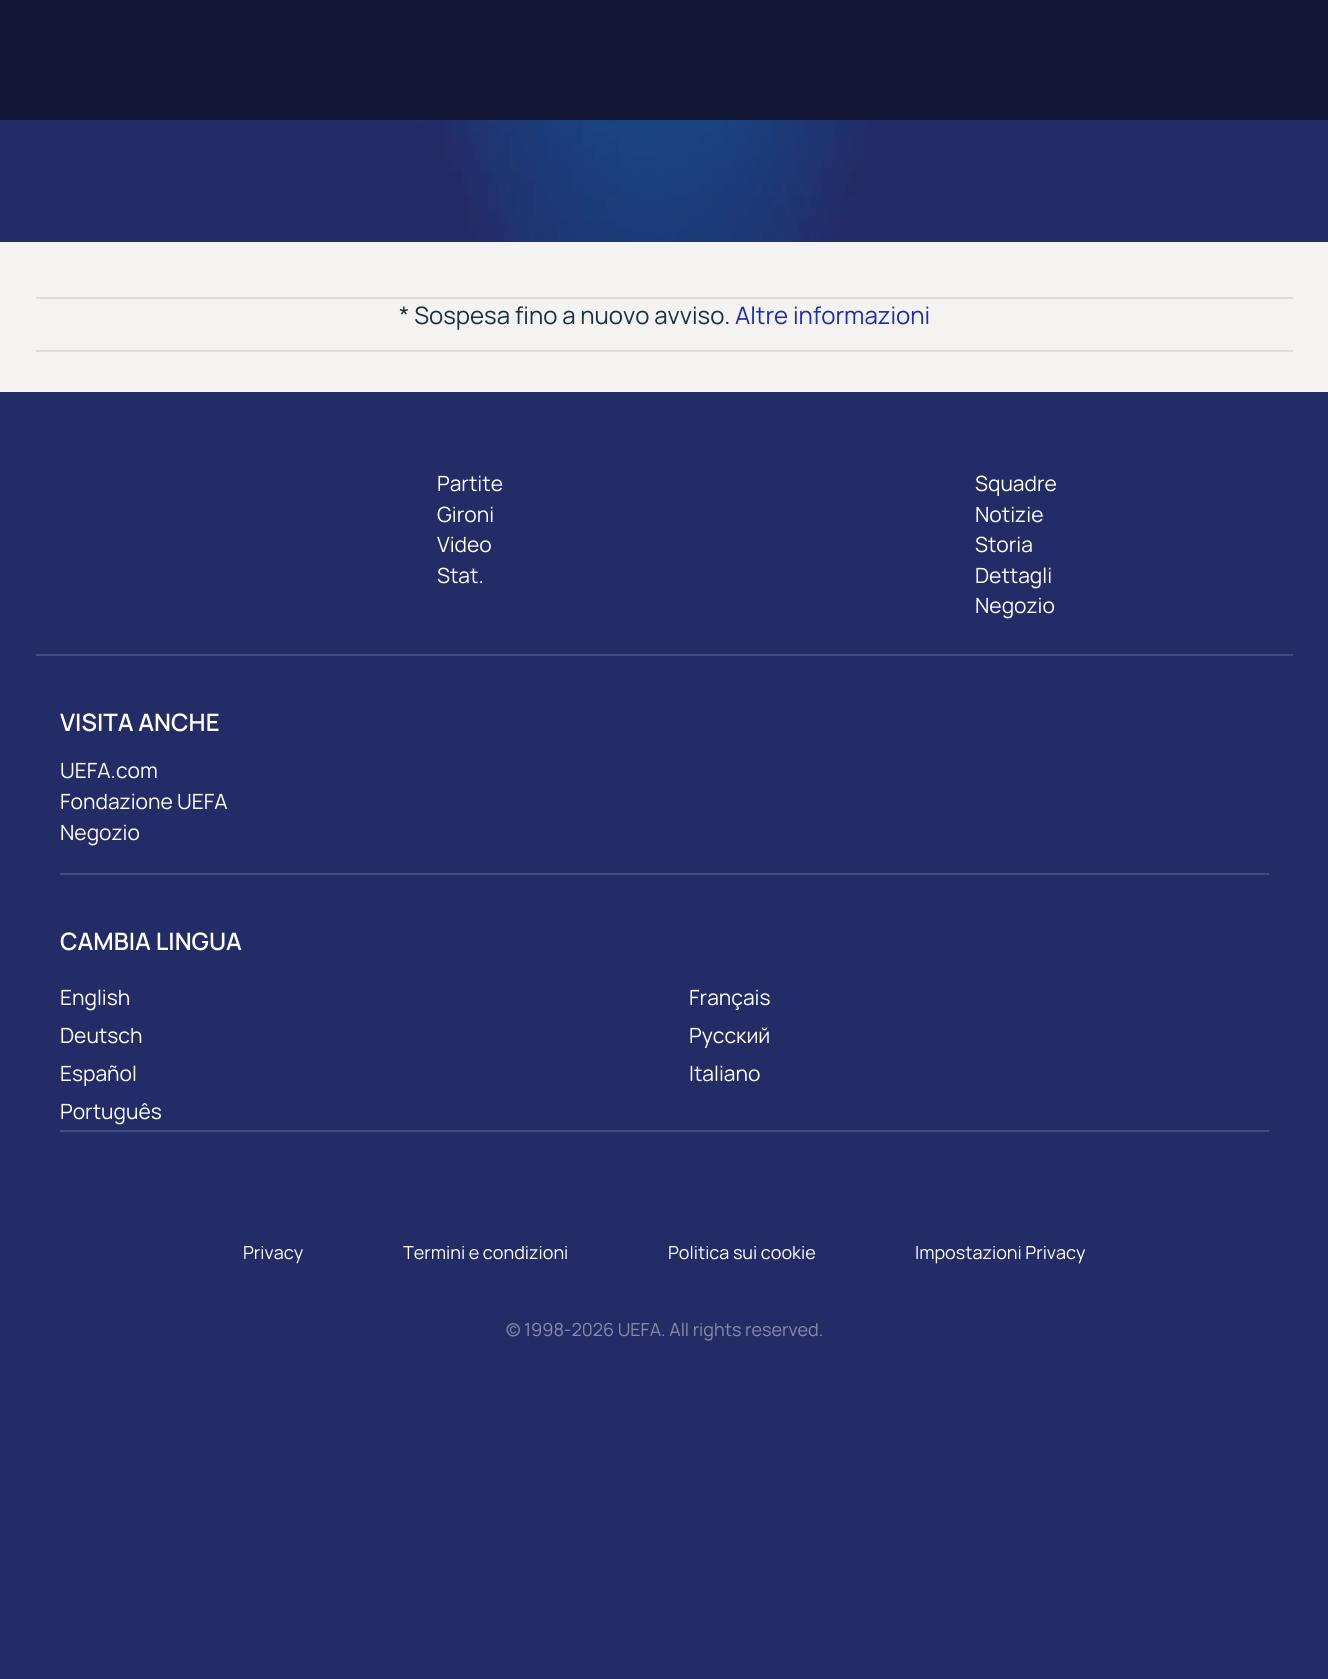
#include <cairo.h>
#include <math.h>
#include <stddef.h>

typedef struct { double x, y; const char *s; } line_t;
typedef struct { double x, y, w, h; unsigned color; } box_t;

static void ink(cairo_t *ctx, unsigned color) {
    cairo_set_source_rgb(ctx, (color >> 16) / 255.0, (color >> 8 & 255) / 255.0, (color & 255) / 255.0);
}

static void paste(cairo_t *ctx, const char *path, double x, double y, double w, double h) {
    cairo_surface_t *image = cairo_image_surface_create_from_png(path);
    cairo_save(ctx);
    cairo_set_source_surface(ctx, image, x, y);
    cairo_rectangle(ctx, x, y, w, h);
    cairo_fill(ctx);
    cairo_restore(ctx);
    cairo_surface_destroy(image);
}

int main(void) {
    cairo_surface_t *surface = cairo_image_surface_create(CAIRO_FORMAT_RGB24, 1328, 1679);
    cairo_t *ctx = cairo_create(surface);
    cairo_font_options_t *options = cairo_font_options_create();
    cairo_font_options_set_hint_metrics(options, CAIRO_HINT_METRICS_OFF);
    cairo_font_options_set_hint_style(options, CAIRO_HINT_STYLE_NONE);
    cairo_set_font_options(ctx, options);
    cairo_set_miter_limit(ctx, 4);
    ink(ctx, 0x232C67);
    cairo_paint(ctx);
    paste(ctx, "media/1.png", 257, 120, 625, 122);
    {
        static const box_t items[] = {
            {0, 0, 1328, 120, 0x121634},
            {0, 242, 1328, 150, 0xF4F3F2},
            {36, 297, 1257, 2, 0xDDDDDD},
        };
        for (size_t i = 0; i < sizeof items / sizeof *items; i++) {
            ink(ctx, items[i].color);
            cairo_rectangle(ctx, items[i].x, items[i].y, items[i].w, items[i].h);
            cairo_fill(ctx);
        }
    }
    cairo_select_font_face(ctx, "Manrope", CAIRO_FONT_SLANT_NORMAL, CAIRO_FONT_WEIGHT_NORMAL);
    cairo_set_font_size(ctx, 24);
    ink(ctx, 0x1A313C);
    cairo_move_to(ctx, 399, 324);
    cairo_show_text(ctx, "* Sospesa fino a nuovo avviso.");
    ink(ctx, 0x182CAF);
    cairo_move_to(ctx, 735, 324);
    cairo_show_text(ctx, "Altre informazioni");
    ink(ctx, 0xDDDDDD);
    cairo_rectangle(ctx, 36, 350, 1257, 2);
    cairo_fill(ctx);
    cairo_set_font_size(ctx, 21);
    ink(ctx, 0xFFFFFF);
    {
        static const line_t items[] = {
            {437, 491, "Partite"},
            {437, 522, "Gironi"},
            {437, 552, "Video"},
            {437, 583, "Stat."},
            {975, 491, "Squadre"},
            {975, 522, "Notizie"},
            {975, 552, "Storia"},
            {975, 583, "Dettagli"},
            {975, 613, "Negozio"},
        };
        for (size_t i = 0; i < sizeof items / sizeof *items; i++) {
            cairo_move_to(ctx, items[i].x, items[i].y);
            cairo_show_text(ctx, items[i].s);
        }
    }
    ink(ctx, 0x3E4E83);
    cairo_rectangle(ctx, 36, 654, 1257, 2);
    cairo_fill(ctx);
    cairo_select_font_face(ctx, "Manrope SemiBold", CAIRO_FONT_SLANT_NORMAL, CAIRO_FONT_WEIGHT_NORMAL);
    cairo_set_font_size(ctx, 24);
    ink(ctx, 0xFFFFFF);
    cairo_move_to(ctx, 60, 731);
    cairo_show_text(ctx, "VISITA ANCHE");
    cairo_select_font_face(ctx, "Manrope", CAIRO_FONT_SLANT_NORMAL, CAIRO_FONT_WEIGHT_NORMAL);
    cairo_set_font_size(ctx, 21);
    {
        static const line_t items[] = {
            {60, 778, "UEFA.com"},
            {60, 809, "Fondazione UEFA"},
            {60, 840, "Negozio"},
        };
        for (size_t i = 0; i < sizeof items / sizeof *items; i++) {
            cairo_move_to(ctx, items[i].x, items[i].y);
            cairo_show_text(ctx, items[i].s);
        }
    }
    ink(ctx, 0x3E4E83);
    cairo_rectangle(ctx, 60, 873, 1209, 2);
    cairo_fill(ctx);
    cairo_select_font_face(ctx, "Manrope SemiBold", CAIRO_FONT_SLANT_NORMAL, CAIRO_FONT_WEIGHT_NORMAL);
    cairo_set_font_size(ctx, 24);
    ink(ctx, 0xFFFFFF);
    cairo_move_to(ctx, 60, 950);
    cairo_show_text(ctx, "CAMBIA LINGUA");
    cairo_select_font_face(ctx, "Manrope", CAIRO_FONT_SLANT_NORMAL, CAIRO_FONT_WEIGHT_NORMAL);
    cairo_set_font_size(ctx, 21);
    {
        static const line_t items[] = {
            {60, 1005, "English"},
            {689, 1005, "Français"},
            {60, 1043, "Deutsch"},
            {689, 1043, "Русский"},
            {60, 1081, "Español"},
            {689, 1081, "Italiano"},
            {60, 1119, "Português"},
        };
        for (size_t i = 0; i < sizeof items / sizeof *items; i++) {
            cairo_move_to(ctx, items[i].x, items[i].y);
            cairo_show_text(ctx, items[i].s);
        }
    }
    ink(ctx, 0x3E4E83);
    cairo_rectangle(ctx, 60, 1130, 1209, 2);
    cairo_fill(ctx);
    cairo_set_font_size(ctx, 18);
    ink(ctx, 0xFFFFFF);
    {
        static const line_t items[] = {
            {243, 1259, "Privacy"},
            {403, 1259, "Termini e condizioni"},
            {668, 1259, "Politica sui cookie"},
            {915, 1259, "Impostazioni Privacy"},
        };
        for (size_t i = 0; i < sizeof items / sizeof *items; i++) {
            cairo_move_to(ctx, items[i].x, items[i].y);
            cairo_show_text(ctx, items[i].s);
        }
    }
    ink(ctx, 0x888CA4);
    cairo_move_to(ctx, 506, 1336);
    cairo_show_text(ctx, "© 1998-2026 UEFA. All rights reserved.");
    cairo_surface_write_to_png(surface, "image.png");
    cairo_font_options_destroy(options);
    cairo_destroy(ctx);
    cairo_surface_destroy(surface);
    return 0;
}
